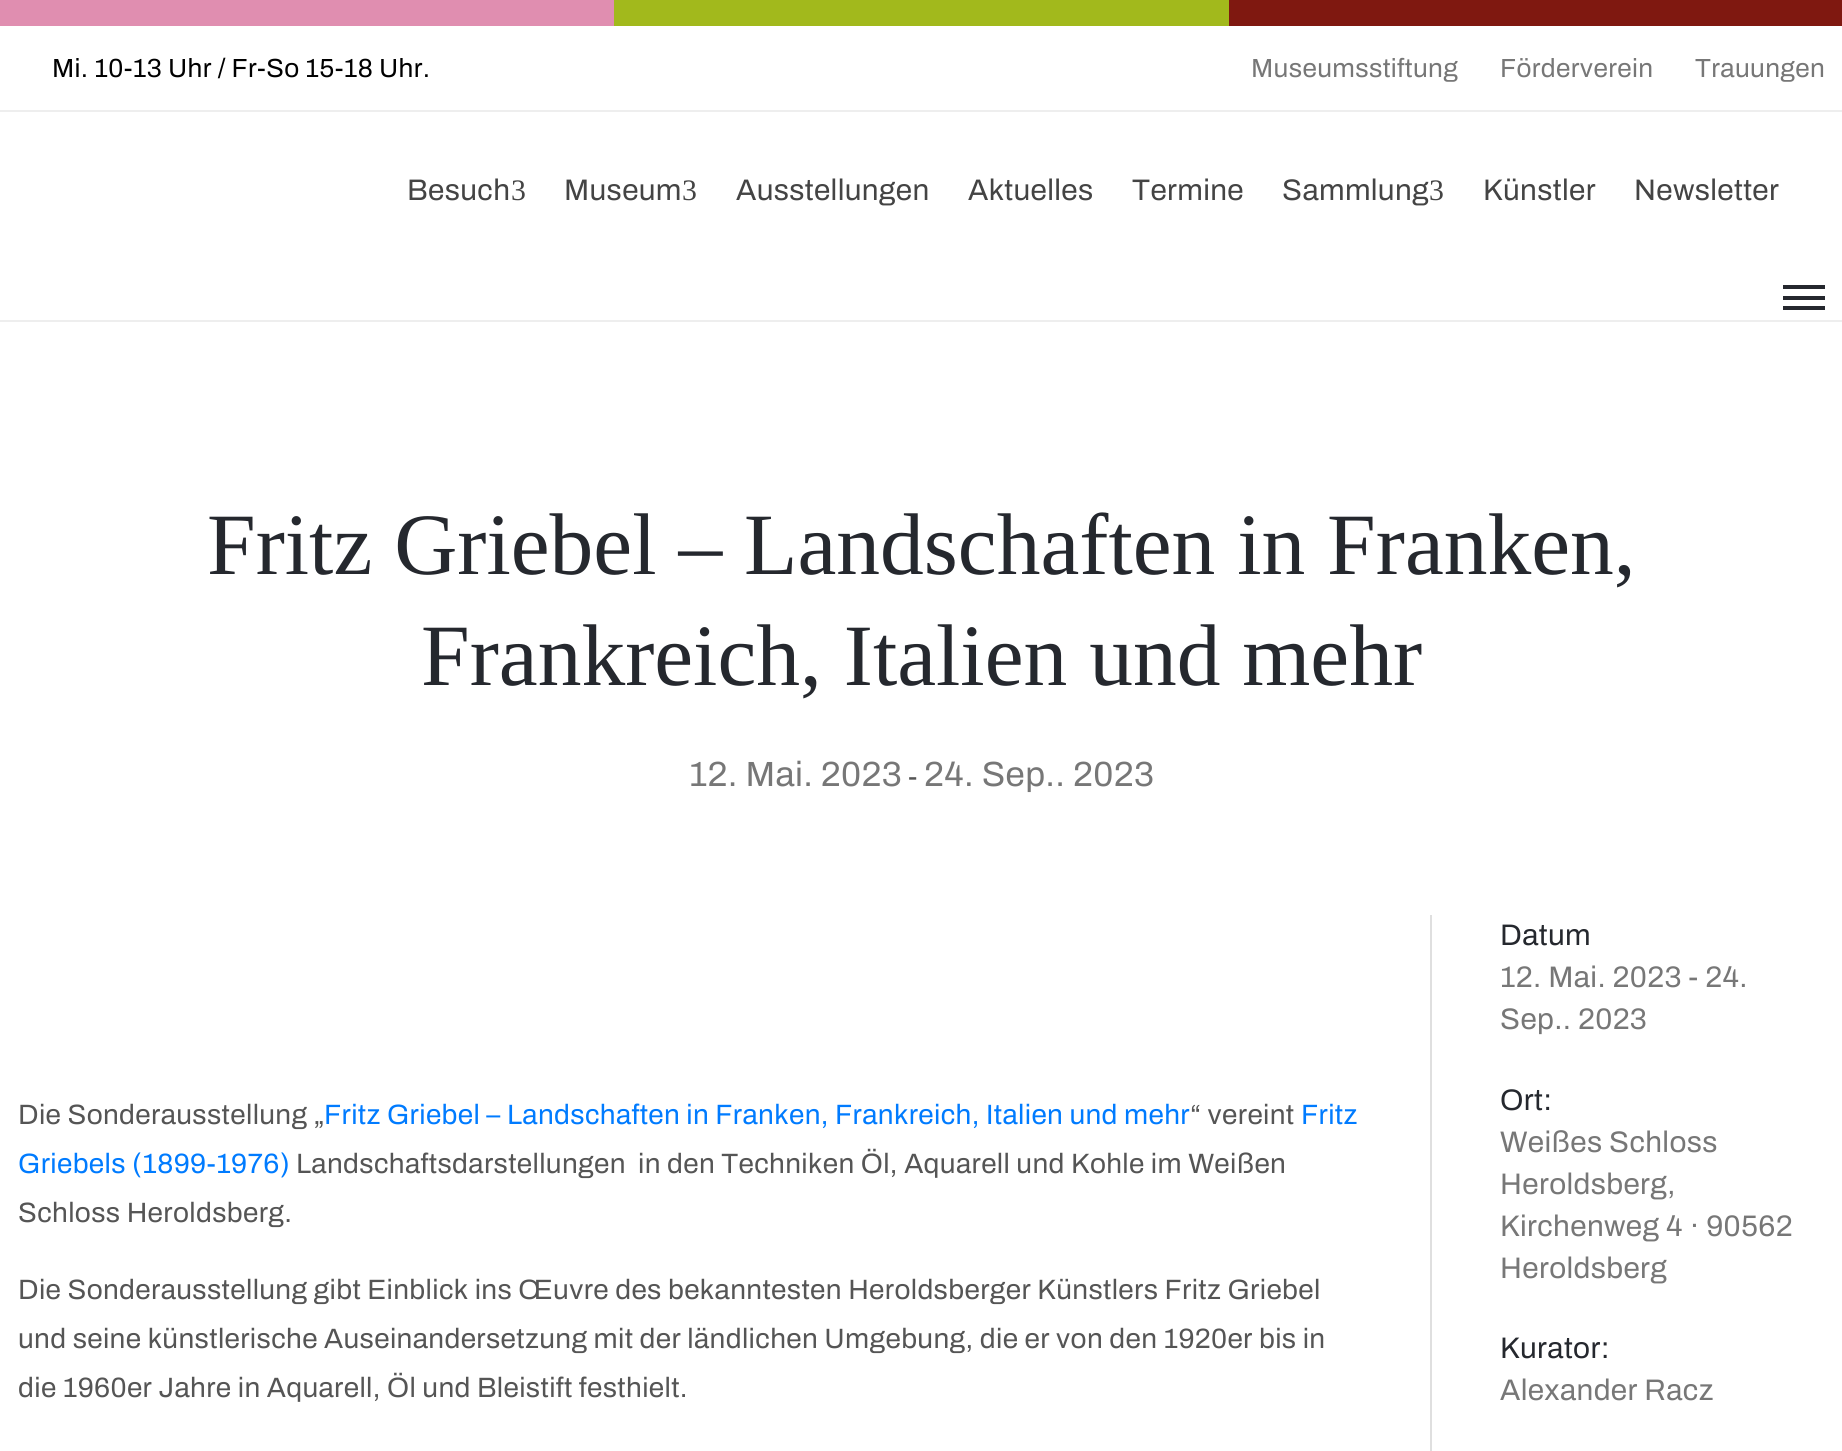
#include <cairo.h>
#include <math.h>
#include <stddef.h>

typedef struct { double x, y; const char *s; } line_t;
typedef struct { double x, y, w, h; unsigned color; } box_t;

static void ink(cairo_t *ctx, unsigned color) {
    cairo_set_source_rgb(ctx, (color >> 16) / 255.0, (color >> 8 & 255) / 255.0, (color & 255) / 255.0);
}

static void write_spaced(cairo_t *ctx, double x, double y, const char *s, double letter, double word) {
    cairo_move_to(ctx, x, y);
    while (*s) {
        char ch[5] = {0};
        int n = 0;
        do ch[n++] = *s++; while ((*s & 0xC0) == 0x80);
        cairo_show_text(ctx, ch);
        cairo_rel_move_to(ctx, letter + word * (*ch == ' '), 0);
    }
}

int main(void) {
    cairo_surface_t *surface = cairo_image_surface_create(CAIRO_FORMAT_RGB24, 1842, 1451);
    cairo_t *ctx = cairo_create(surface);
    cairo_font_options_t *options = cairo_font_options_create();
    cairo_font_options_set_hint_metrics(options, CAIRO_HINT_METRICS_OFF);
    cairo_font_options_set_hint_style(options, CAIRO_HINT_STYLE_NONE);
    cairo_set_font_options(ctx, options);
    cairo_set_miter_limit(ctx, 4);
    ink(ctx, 0xFFFFFF);
    cairo_paint(ctx);
    {
        static const box_t items[] = {
            {0, 0, 614, 26, 0xE08EB0},
            {614, 0, 615, 26, 0xA2B91C},
            {1229, 0, 613, 26, 0x7F1810},
            {0, 110, 1842, 2, 0xEEEEEE},
        };
        for (size_t i = 0; i < sizeof items / sizeof *items; i++) {
            ink(ctx, items[i].color);
            cairo_rectangle(ctx, items[i].x, items[i].y, items[i].w, items[i].h);
            cairo_fill(ctx);
        }
    }
    cairo_select_font_face(ctx, "Archivo", CAIRO_FONT_SLANT_NORMAL, CAIRO_FONT_WEIGHT_NORMAL);
    cairo_set_font_size(ctx, 26.25);
    ink(ctx, 0x000000);
    write_spaced(ctx, 52, 77, "Mi. 10-13 Uhr / Fr-So 15-18 Uhr.", 0.35, 0);
    ink(ctx, 0x777777);
    {
        static const line_t items[] = {
            {1251, 77, "Museumsstiftung"},
            {1500, 77, "Förderverein"},
            {1695, 77, "Trauungen"},
        };
        for (size_t i = 0; i < sizeof items / sizeof *items; i++) {
            write_spaced(ctx, items[i].x, items[i].y, items[i].s, 0.35, 0);
        }
    }
    ink(ctx, 0xEEEEEE);
    cairo_rectangle(ctx, 0, 320, 1842, 2);
    cairo_fill(ctx);
    cairo_set_font_size(ctx, 29.75);
    ink(ctx, 0x444444);
    write_spaced(ctx, 407, 200, "Besuch", 0.35, 0);
    cairo_select_font_face(ctx, "Liberation Serif", CAIRO_FONT_SLANT_NORMAL, CAIRO_FONT_WEIGHT_NORMAL);
    write_spaced(ctx, 511, 200, "3", 0.35, 0);
    cairo_select_font_face(ctx, "Archivo", CAIRO_FONT_SLANT_NORMAL, CAIRO_FONT_WEIGHT_NORMAL);
    write_spaced(ctx, 564, 200, "Museum", 0.35, 0);
    cairo_select_font_face(ctx, "Liberation Serif", CAIRO_FONT_SLANT_NORMAL, CAIRO_FONT_WEIGHT_NORMAL);
    write_spaced(ctx, 682, 200, "3", 0.35, 0);
    cairo_select_font_face(ctx, "Archivo", CAIRO_FONT_SLANT_NORMAL, CAIRO_FONT_WEIGHT_NORMAL);
    {
        static const line_t items[] = {
            {736, 200, "Ausstellungen"},
            {968, 200, "Aktuelles"},
            {1132, 200, "Termine"},
            {1282, 200, "Sammlung"},
        };
        for (size_t i = 0; i < sizeof items / sizeof *items; i++) {
            write_spaced(ctx, items[i].x, items[i].y, items[i].s, 0.35, 0);
        }
    }
    cairo_select_font_face(ctx, "Liberation Serif", CAIRO_FONT_SLANT_NORMAL, CAIRO_FONT_WEIGHT_NORMAL);
    write_spaced(ctx, 1429, 200, "3", 0.35, 0);
    cairo_select_font_face(ctx, "Archivo", CAIRO_FONT_SLANT_NORMAL, CAIRO_FONT_WEIGHT_NORMAL);
    write_spaced(ctx, 1483, 200, "Künstler", 0.35, 0);
    write_spaced(ctx, 1634, 200, "Newsletter", 0.35, 0);
    {
        static const box_t items[] = {
            {1783, 285, 42, 4, 0x25282E},
            {1783, 296, 42, 4, 0x25282E},
            {1783, 306, 42, 4, 0x25282E},
        };
        for (size_t i = 0; i < sizeof items / sizeof *items; i++) {
            ink(ctx, items[i].color);
            cairo_rectangle(ctx, items[i].x, items[i].y, items[i].w, items[i].h);
            cairo_fill(ctx);
        }
    }
    cairo_select_font_face(ctx, "Liberation Serif", CAIRO_FONT_SLANT_NORMAL, CAIRO_FONT_WEIGHT_NORMAL);
    cairo_set_font_size(ctx, 87.5);
    cairo_move_to(ctx, 207, 574);
    cairo_show_text(ctx, "Fritz Griebel – Landschaften in Franken,");
    cairo_move_to(ctx, 421, 685);
    cairo_show_text(ctx, "Frankreich, Italien und mehr");
    cairo_select_font_face(ctx, "Archivo", CAIRO_FONT_SLANT_NORMAL, CAIRO_FONT_WEIGHT_NORMAL);
    cairo_set_font_size(ctx, 35);
    ink(ctx, 0x777777);
    write_spaced(ctx, 689, 786, "12. Mai. 2023", 0.35, 0);
    cairo_set_font_size(ctx, 28);
    ink(ctx, 0x555555);
    write_spaced(ctx, 908, 786, "-", 0.35, 0);
    cairo_set_font_size(ctx, 35);
    ink(ctx, 0x777777);
    write_spaced(ctx, 924, 786, "24. Sep.. 2023", 0.35, 0);
    cairo_set_font_size(ctx, 28);
    ink(ctx, 0x555555);
    write_spaced(ctx, 18, 1124, "Die Sonderausstellung „", 0.35, 0);
    ink(ctx, 0x007BFF);
    write_spaced(ctx, 324, 1124, "Fritz Griebel – Landschaften in Franken, Frankreich, Italien und mehr", 0.35, 0);
    ink(ctx, 0x555555);
    write_spaced(ctx, 1190, 1124, "“ vereint", 0.35, 0);
    ink(ctx, 0x007BFF);
    write_spaced(ctx, 1301, 1124, "Fritz", 0.35, 0);
    write_spaced(ctx, 18, 1173, "Griebels (1899-1976)", 0.35, 0);
    ink(ctx, 0x555555);
    {
        static const line_t items[] = {
            {296, 1173, "Landschaftsdarstellungen"},
            {638, 1173, "in den Techniken Öl, Aquarell und Kohle im Weißen"},
            {18, 1222, "Schloss Heroldsberg."},
            {18, 1299, "Die Sonderausstellung gibt Einblick ins Œuvre des bekanntesten Heroldsberger Künstlers Fritz Griebel"},
            {18, 1348, "und seine künstlerische Auseinandersetzung mit der ländlichen Umgebung, die er von den 1920er bis in"},
            {18, 1397, "die 1960er Jahre in Aquarell, Öl und Bleistift festhielt."},
        };
        for (size_t i = 0; i < sizeof items / sizeof *items; i++) {
            write_spaced(ctx, items[i].x, items[i].y, items[i].s, 0.35, 0);
        }
    }
    ink(ctx, 0xDFDFDF);
    cairo_rectangle(ctx, 1430, 915, 2, 536);
    cairo_fill(ctx);
    cairo_set_font_size(ctx, 29.75);
    ink(ctx, 0x25282E);
    write_spaced(ctx, 1500, 945, "Datum", 0.35, 0);
    ink(ctx, 0x777777);
    write_spaced(ctx, 1500, 987, "12. Mai. 2023 - 24.", 0.35, 0);
    write_spaced(ctx, 1500, 1029, "Sep.. 2023", 0.35, 0);
    ink(ctx, 0x25282E);
    write_spaced(ctx, 1500, 1110, "Ort:", 0.35, 0);
    ink(ctx, 0x777777);
    {
        static const line_t items[] = {
            {1500, 1152, "Weißes Schloss"},
            {1500, 1194, "Heroldsberg,"},
            {1500, 1236, "Kirchenweg 4 · 90562"},
            {1500, 1278, "Heroldsberg"},
        };
        for (size_t i = 0; i < sizeof items / sizeof *items; i++) {
            write_spaced(ctx, items[i].x, items[i].y, items[i].s, 0.35, 0);
        }
    }
    ink(ctx, 0x25282E);
    write_spaced(ctx, 1500, 1358, "Kurator:", 0.35, 0);
    ink(ctx, 0x777777);
    write_spaced(ctx, 1500, 1400, "Alexander Racz", 0.35, 0);
    cairo_surface_write_to_png(surface, "image.png");
    cairo_font_options_destroy(options);
    cairo_destroy(ctx);
    cairo_surface_destroy(surface);
    return 0;
}
